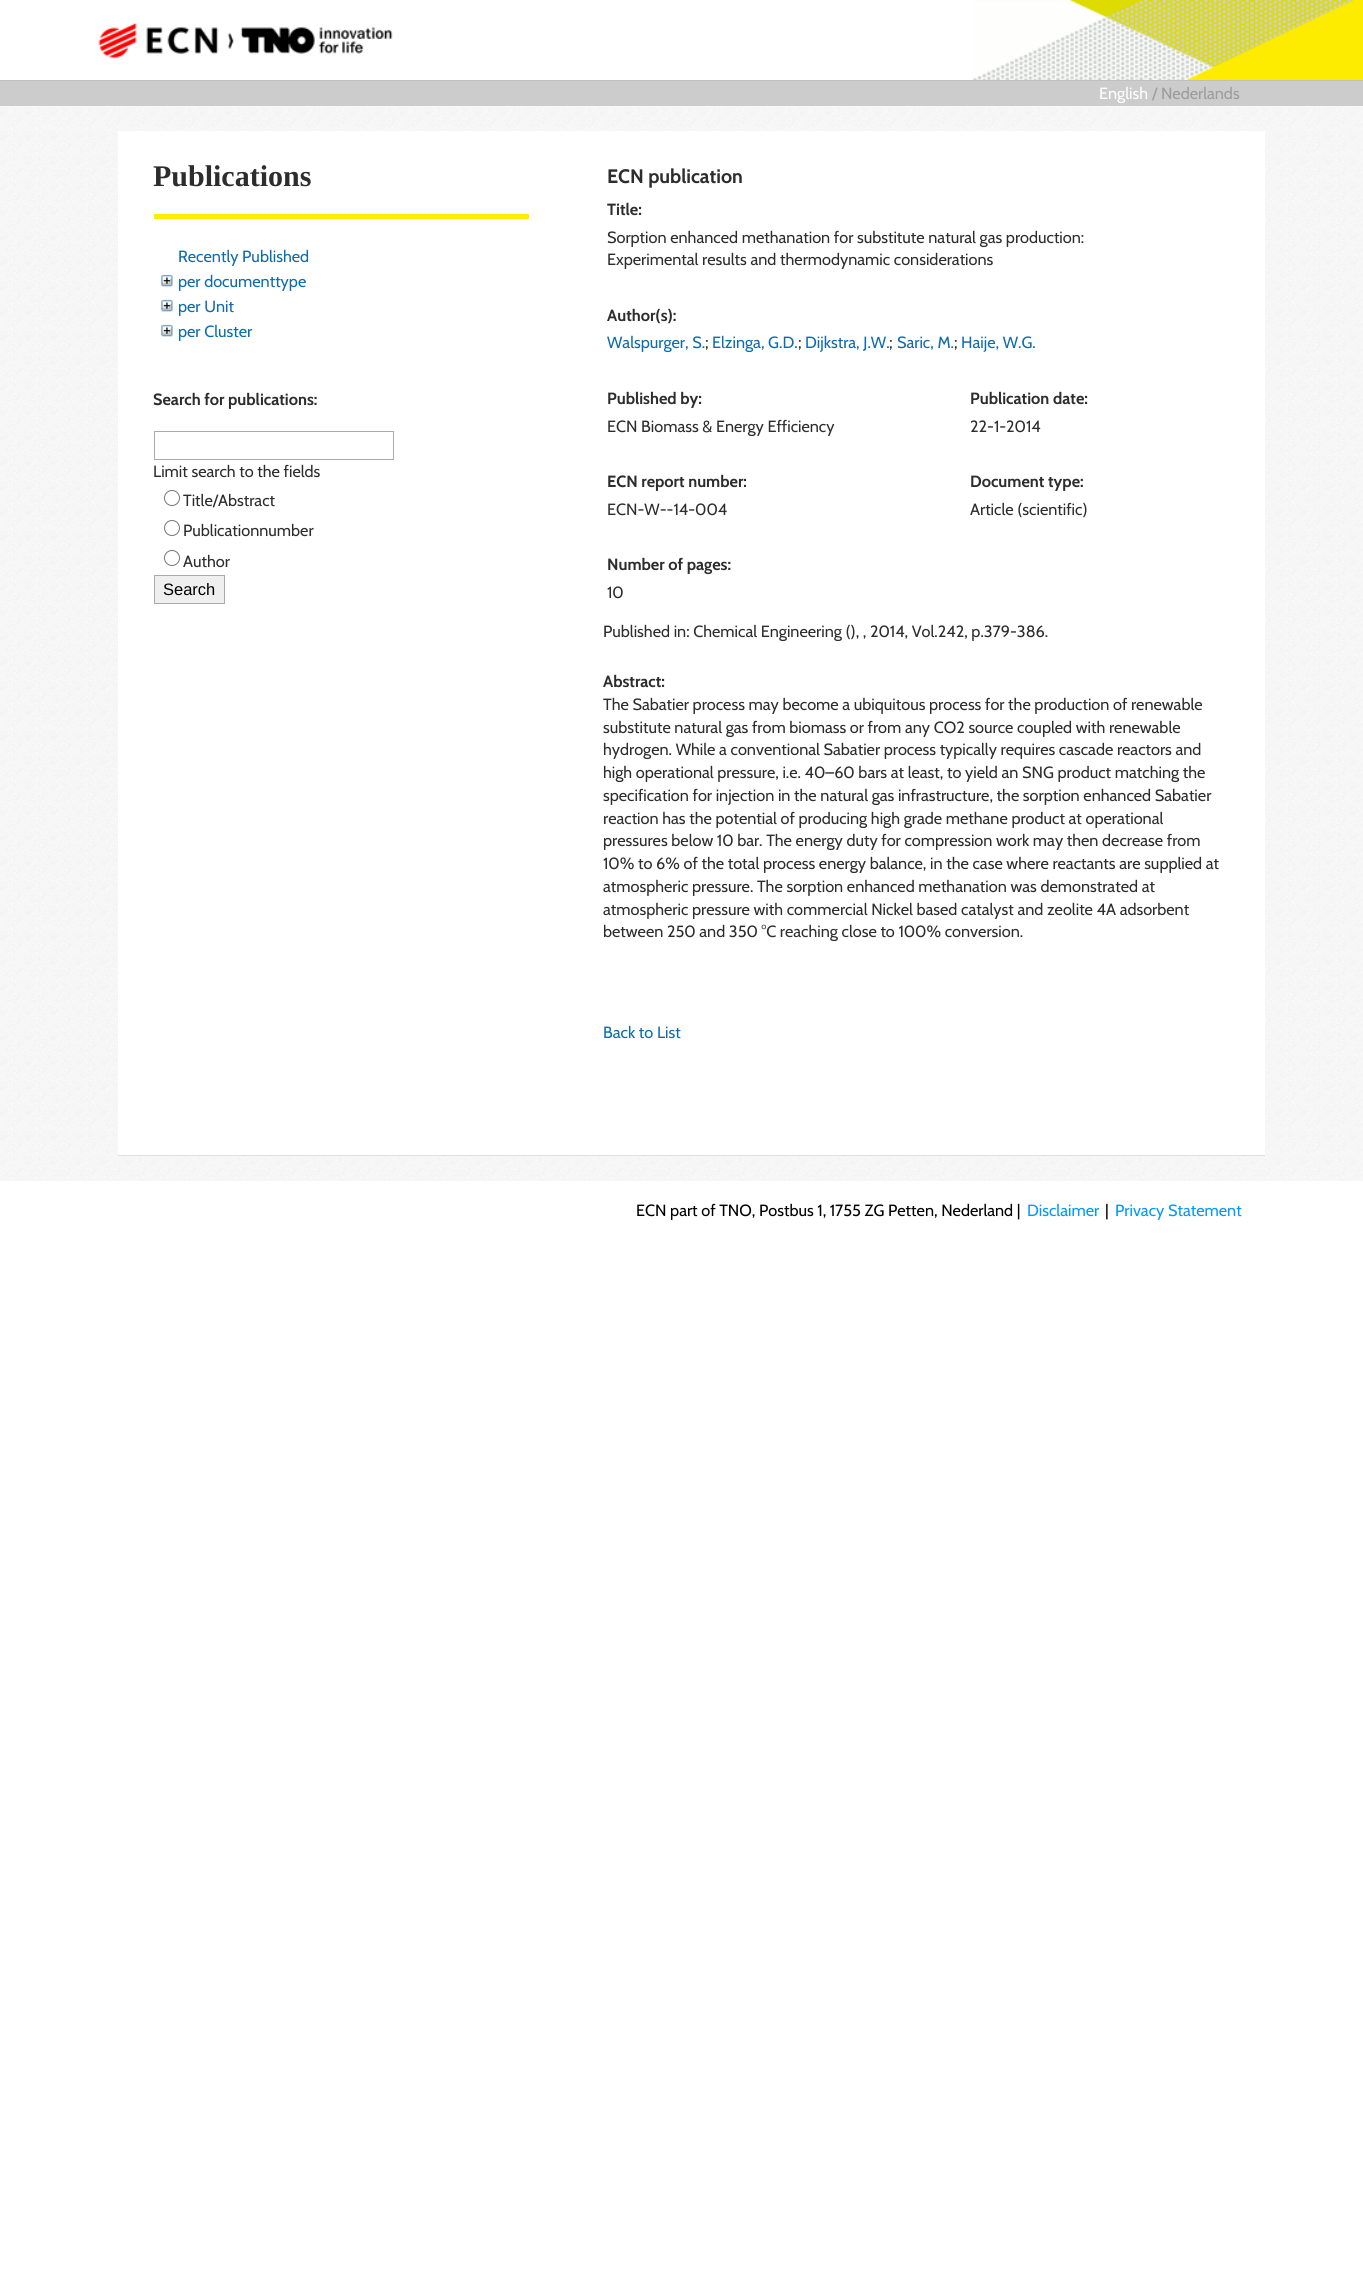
#include <cairo.h>
#include <math.h>
#include <stddef.h>

typedef struct { double x, y; const char *s; } line_t;
typedef struct { double x, y, w, h; unsigned color; } box_t;

static void ink(cairo_t *ctx, unsigned color) {
    cairo_set_source_rgb(ctx, (color >> 16) / 255.0, (color >> 8 & 255) / 255.0, (color & 255) / 255.0);
}

static void paste(cairo_t *ctx, const char *path, double x, double y, double w, double h) {
    cairo_surface_t *image = cairo_image_surface_create_from_png(path);
    cairo_save(ctx);
    cairo_set_source_surface(ctx, image, x, y);
    cairo_rectangle(ctx, x, y, w, h);
    cairo_fill(ctx);
    cairo_restore(ctx);
    cairo_surface_destroy(image);
}

int main(void) {
    cairo_surface_t *surface = cairo_image_surface_create(CAIRO_FORMAT_RGB24, 1363, 2295);
    cairo_t *ctx = cairo_create(surface);
    cairo_font_options_t *options = cairo_font_options_create();
    cairo_font_options_set_hint_metrics(options, CAIRO_HINT_METRICS_OFF);
    cairo_font_options_set_hint_style(options, CAIRO_HINT_STYLE_NONE);
    cairo_set_font_options(ctx, options);
    cairo_set_miter_limit(ctx, 4);
    ink(ctx, 0xFFFFFF);
    cairo_paint(ctx);
    ink(ctx, 0xCCCCCC);
    cairo_rectangle(ctx, 0, 81, 1363, 25);
    cairo_fill(ctx);
    ink(ctx, 0xC0C0C0);
    cairo_rectangle(ctx, 0, 80, 1363, 1);
    cairo_fill(ctx);
    paste(ctx, "media/1.png", 972, 0, 391, 80);
    paste(ctx, "media/2.png", 98, 23, 295, 36);
    cairo_select_font_face(ctx, "Cabin", CAIRO_FONT_SLANT_NORMAL, CAIRO_FONT_WEIGHT_NORMAL);
    cairo_set_font_size(ctx, 16.25);
    ink(ctx, 0xFFFFFF);
    cairo_move_to(ctx, 1099, 99);
    cairo_show_text(ctx, "English");
    ink(ctx, 0x9C9C9C);
    cairo_move_to(ctx, 1152, 99);
    cairo_show_text(ctx, "/ Nederlands");
    paste(ctx, "media/3.png", 0, 106, 1363, 1075);
    {
        static const box_t items[] = {
            {118, 131, 1147, 1024, 0xFFFFFF},
            {118, 1155, 1147, 1, 0xDFDFDF},
            {154, 214, 375, 5, 0xFFEC00},
        };
        for (size_t i = 0; i < sizeof items / sizeof *items; i++) {
            ink(ctx, items[i].color);
            cairo_rectangle(ctx, items[i].x, items[i].y, items[i].w, items[i].h);
            cairo_fill(ctx);
        }
    }
    cairo_select_font_face(ctx, "Liberation Serif", CAIRO_FONT_SLANT_NORMAL, CAIRO_FONT_WEIGHT_BOLD);
    cairo_set_font_size(ctx, 30);
    ink(ctx, 0x2E2D2D);
    cairo_move_to(ctx, 153, 186);
    cairo_show_text(ctx, "Publications");
    cairo_select_font_face(ctx, "Cabin", CAIRO_FONT_SLANT_NORMAL, CAIRO_FONT_WEIGHT_NORMAL);
    cairo_set_font_size(ctx, 16.25);
    ink(ctx, 0x0F6CAC);
    cairo_move_to(ctx, 178, 262);
    cairo_show_text(ctx, "Recently Published");
    paste(ctx, "media/4.png", 161, 274, 12, 13);
    cairo_move_to(ctx, 178, 287);
    cairo_show_text(ctx, "per documenttype");
    paste(ctx, "media/5.png", 161, 299, 12, 13);
    cairo_move_to(ctx, 178, 312);
    cairo_show_text(ctx, "per Unit");
    paste(ctx, "media/4.png", 161, 324, 12, 13);
    cairo_move_to(ctx, 178, 337);
    cairo_show_text(ctx, "per Cluster");
    cairo_select_font_face(ctx, "Cabin", CAIRO_FONT_SLANT_NORMAL, CAIRO_FONT_WEIGHT_BOLD);
    ink(ctx, 0x2E2D2D);
    cairo_move_to(ctx, 153, 405);
    cairo_show_text(ctx, "Search for publications:");
    cairo_rectangle(ctx, 154.5, 431.5, 239, 28);
    ink(ctx, 0xAAAAAA);
    cairo_set_line_width(ctx, 1);
    cairo_stroke(ctx);
    cairo_select_font_face(ctx, "Cabin", CAIRO_FONT_SLANT_NORMAL, CAIRO_FONT_WEIGHT_NORMAL);
    ink(ctx, 0x2E2D2D);
    cairo_move_to(ctx, 153, 477);
    cairo_show_text(ctx, "Limit search to the fields");
    cairo_new_path(ctx);
    cairo_arc(ctx, 172, 498, 7.5, 0, 2 * M_PI);
    ink(ctx, 0x767676);
    cairo_stroke(ctx);
    ink(ctx, 0x2E2D2D);
    cairo_move_to(ctx, 183, 506);
    cairo_show_text(ctx, "Title/Abstract");
    cairo_new_path(ctx);
    cairo_arc(ctx, 172, 528, 7.5, 0, 2 * M_PI);
    ink(ctx, 0x767676);
    cairo_stroke(ctx);
    ink(ctx, 0x2E2D2D);
    cairo_move_to(ctx, 183, 536);
    cairo_show_text(ctx, "Publicationnumber");
    cairo_new_path(ctx);
    cairo_arc(ctx, 172, 558, 7.5, 0, 2 * M_PI);
    ink(ctx, 0x767676);
    cairo_stroke(ctx);
    ink(ctx, 0x2E2D2D);
    cairo_move_to(ctx, 183, 567);
    cairo_show_text(ctx, "Author");
    ink(ctx, 0xEFEFEF);
    cairo_rectangle(ctx, 154.5, 575.5, 70, 28);
    cairo_fill_preserve(ctx);
    ink(ctx, 0xAAAAAA);
    cairo_stroke(ctx);
    cairo_select_font_face(ctx, "Liberation Sans", CAIRO_FONT_SLANT_NORMAL, CAIRO_FONT_WEIGHT_NORMAL);
    cairo_set_font_size(ctx, 16.5);
    ink(ctx, 0x000000);
    cairo_move_to(ctx, 163, 595);
    cairo_show_text(ctx, "Search");
    cairo_select_font_face(ctx, "Cabin", CAIRO_FONT_SLANT_NORMAL, CAIRO_FONT_WEIGHT_BOLD);
    cairo_set_font_size(ctx, 19.5);
    ink(ctx, 0x2E2D2D);
    cairo_move_to(ctx, 607, 183);
    cairo_show_text(ctx, "ECN publication");
    cairo_set_font_size(ctx, 16.25);
    cairo_move_to(ctx, 607, 215);
    cairo_show_text(ctx, "Title:");
    cairo_select_font_face(ctx, "Cabin", CAIRO_FONT_SLANT_NORMAL, CAIRO_FONT_WEIGHT_NORMAL);
    cairo_move_to(ctx, 607, 243);
    cairo_show_text(ctx, "Sorption enhanced methanation for substitute natural gas production:");
    cairo_move_to(ctx, 607, 265);
    cairo_show_text(ctx, "Experimental results and thermodynamic considerations");
    cairo_select_font_face(ctx, "Cabin", CAIRO_FONT_SLANT_NORMAL, CAIRO_FONT_WEIGHT_BOLD);
    cairo_move_to(ctx, 607, 321);
    cairo_show_text(ctx, "Author(s):");
    cairo_select_font_face(ctx, "Cabin", CAIRO_FONT_SLANT_NORMAL, CAIRO_FONT_WEIGHT_NORMAL);
    ink(ctx, 0x0F6CAC);
    cairo_move_to(ctx, 607, 348);
    cairo_show_text(ctx, "Walspurger, S.");
    ink(ctx, 0x2E2D2D);
    cairo_move_to(ctx, 705, 348);
    cairo_show_text(ctx, ";");
    ink(ctx, 0x0F6CAC);
    cairo_move_to(ctx, 712, 348);
    cairo_show_text(ctx, "Elzinga, G.D.");
    ink(ctx, 0x2E2D2D);
    cairo_move_to(ctx, 798, 348);
    cairo_show_text(ctx, ";");
    ink(ctx, 0x0F6CAC);
    cairo_move_to(ctx, 805, 348);
    cairo_show_text(ctx, "Dijkstra, J.W.");
    ink(ctx, 0x2E2D2D);
    cairo_move_to(ctx, 889, 348);
    cairo_show_text(ctx, ";");
    ink(ctx, 0x0F6CAC);
    cairo_move_to(ctx, 897, 348);
    cairo_show_text(ctx, "Saric, M.");
    ink(ctx, 0x2E2D2D);
    cairo_move_to(ctx, 954, 348);
    cairo_show_text(ctx, ";");
    ink(ctx, 0x0F6CAC);
    cairo_move_to(ctx, 961, 348);
    cairo_show_text(ctx, "Haije, W.G.");
    cairo_select_font_face(ctx, "Cabin", CAIRO_FONT_SLANT_NORMAL, CAIRO_FONT_WEIGHT_BOLD);
    ink(ctx, 0x2E2D2D);
    cairo_move_to(ctx, 607, 404);
    cairo_show_text(ctx, "Published by:");
    cairo_move_to(ctx, 970, 404);
    cairo_show_text(ctx, "Publication date:");
    cairo_select_font_face(ctx, "Cabin", CAIRO_FONT_SLANT_NORMAL, CAIRO_FONT_WEIGHT_NORMAL);
    cairo_move_to(ctx, 607, 432);
    cairo_show_text(ctx, "ECN Biomass & Energy Efficiency");
    cairo_move_to(ctx, 970, 432);
    cairo_show_text(ctx, "22-1-2014");
    cairo_select_font_face(ctx, "Cabin", CAIRO_FONT_SLANT_NORMAL, CAIRO_FONT_WEIGHT_BOLD);
    cairo_move_to(ctx, 607, 487);
    cairo_show_text(ctx, "ECN report number:");
    cairo_move_to(ctx, 970, 487);
    cairo_show_text(ctx, "Document type:");
    cairo_select_font_face(ctx, "Cabin", CAIRO_FONT_SLANT_NORMAL, CAIRO_FONT_WEIGHT_NORMAL);
    cairo_move_to(ctx, 607, 515);
    cairo_show_text(ctx, "ECN-W--14-004");
    cairo_move_to(ctx, 970, 515);
    cairo_show_text(ctx, "Article (scientific)");
    cairo_select_font_face(ctx, "Cabin", CAIRO_FONT_SLANT_NORMAL, CAIRO_FONT_WEIGHT_BOLD);
    cairo_move_to(ctx, 607, 570);
    cairo_show_text(ctx, "Number of pages:");
    cairo_select_font_face(ctx, "Cabin", CAIRO_FONT_SLANT_NORMAL, CAIRO_FONT_WEIGHT_NORMAL);
    cairo_move_to(ctx, 607, 598);
    cairo_show_text(ctx, "10");
    cairo_move_to(ctx, 603, 637);
    cairo_show_text(ctx, "Published in: Chemical Engineering (), , 2014, Vol.242, p.379-386.");
    cairo_select_font_face(ctx, "Cabin", CAIRO_FONT_SLANT_NORMAL, CAIRO_FONT_WEIGHT_BOLD);
    cairo_move_to(ctx, 603, 687);
    cairo_show_text(ctx, "Abstract:");
    cairo_select_font_face(ctx, "Cabin", CAIRO_FONT_SLANT_NORMAL, CAIRO_FONT_WEIGHT_NORMAL);
    {
        static const line_t items[] = {
            {603, 710, "The Sabatier process may become a ubiquitous process for the production of renewable"},
            {603, 733, "substitute natural gas from biomass or from any CO2 source coupled with renewable"},
            {603, 755, "hydrogen. While a conventional Sabatier process typically requires cascade reactors and"},
            {603, 778, "high operational pressure, i.e. 40–60 bars at least, to yield an SNG product matching the"},
            {603, 801, "specification for injection in the natural gas infrastructure, the sorption enhanced Sabatier"},
            {603, 824, "reaction has the potential of producing high grade methane product at operational"},
            {603, 846, "pressures below 10 bar. The energy duty for compression work may then decrease from"},
            {603, 869, "10% to 6% of the total process energy balance, in the case where reactants are supplied at"},
            {603, 892, "atmospheric pressure. The sorption enhanced methanation was demonstrated at"},
            {603, 915, "atmospheric pressure with commercial Nickel based catalyst and zeolite 4A adsorbent"},
            {603, 937, "between 250 and 350 °C reaching close to 100% conversion."},
        };
        for (size_t i = 0; i < sizeof items / sizeof *items; i++) {
            cairo_move_to(ctx, items[i].x, items[i].y);
            cairo_show_text(ctx, items[i].s);
        }
    }
    ink(ctx, 0x0F6CAC);
    cairo_move_to(ctx, 603, 1038);
    cairo_show_text(ctx, "Back to List");
    ink(ctx, 0x000000);
    cairo_move_to(ctx, 636, 1216);
    cairo_show_text(ctx, "ECN part of TNO, Postbus 1, 1755 ZG Petten, Nederland |");
    ink(ctx, 0x0099FF);
    cairo_move_to(ctx, 1027, 1216);
    cairo_show_text(ctx, "Disclaimer");
    ink(ctx, 0x000000);
    cairo_move_to(ctx, 1105, 1216);
    cairo_show_text(ctx, "|");
    ink(ctx, 0x0099FF);
    cairo_move_to(ctx, 1115, 1216);
    cairo_show_text(ctx, "Privacy Statement");
    cairo_surface_write_to_png(surface, "image.png");
    cairo_font_options_destroy(options);
    cairo_destroy(ctx);
    cairo_surface_destroy(surface);
    return 0;
}
